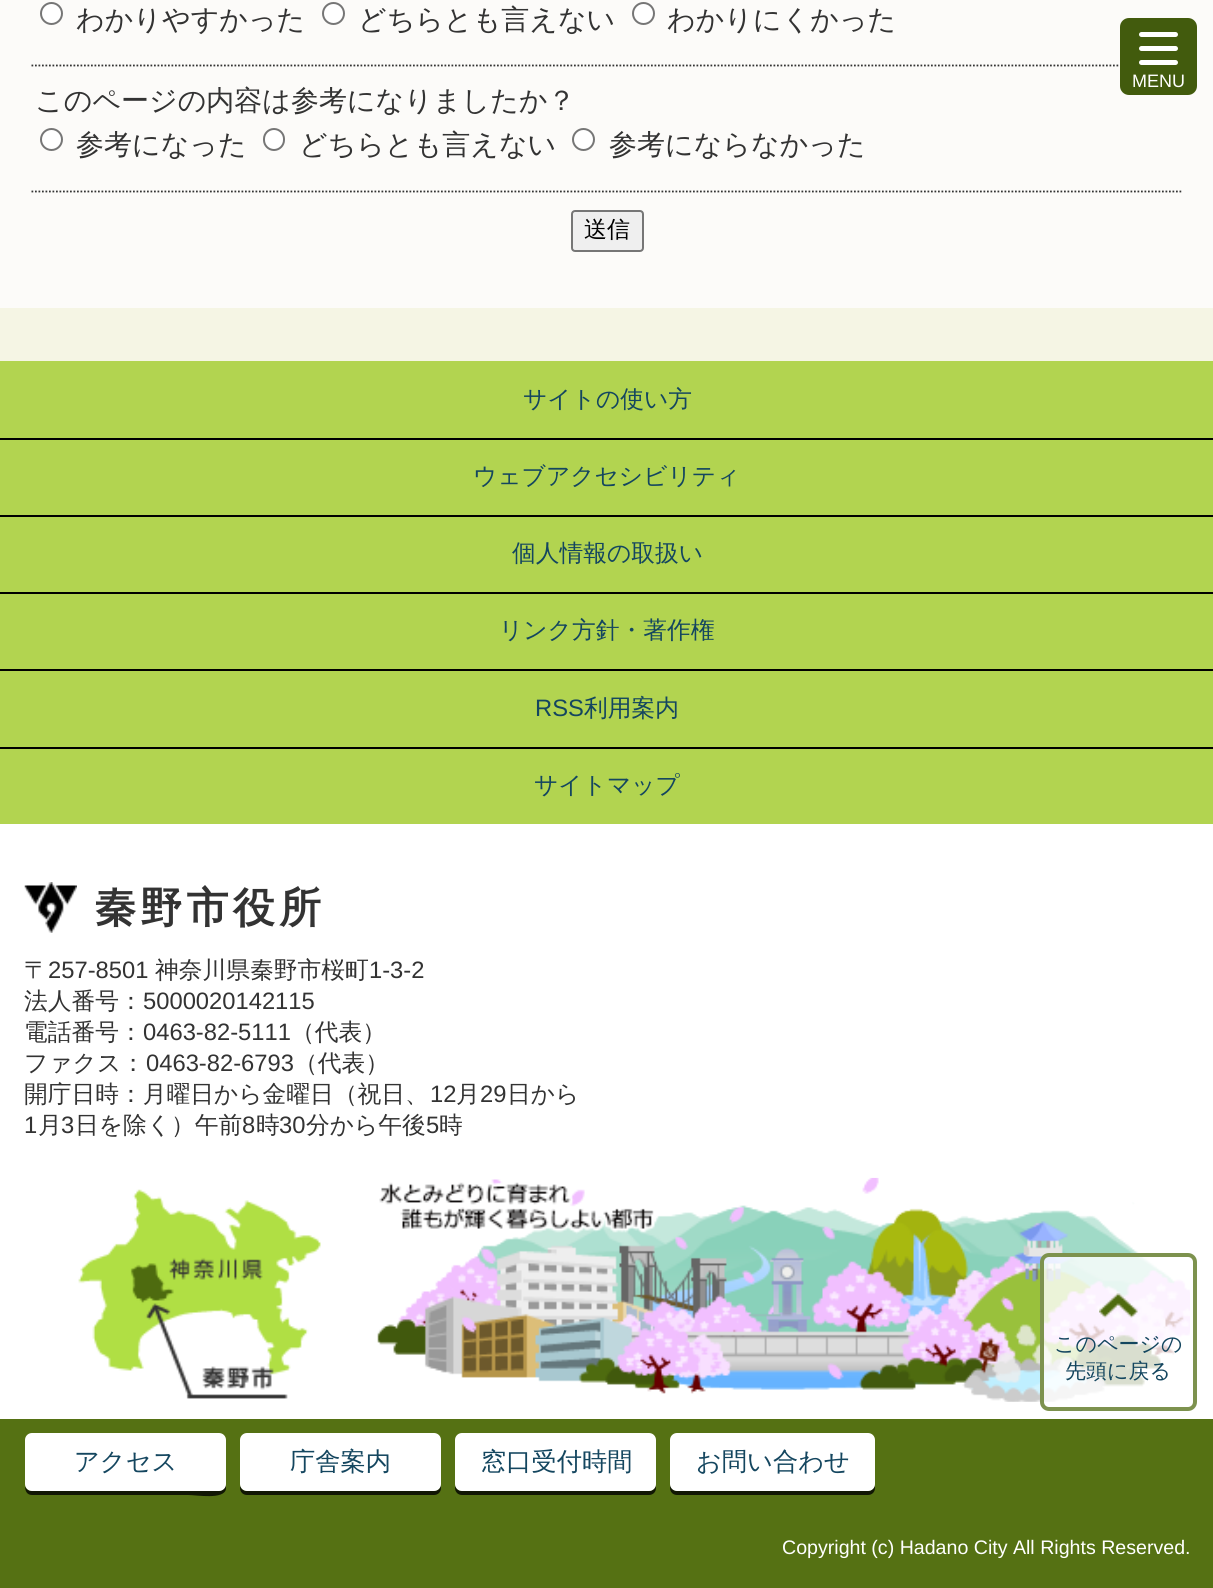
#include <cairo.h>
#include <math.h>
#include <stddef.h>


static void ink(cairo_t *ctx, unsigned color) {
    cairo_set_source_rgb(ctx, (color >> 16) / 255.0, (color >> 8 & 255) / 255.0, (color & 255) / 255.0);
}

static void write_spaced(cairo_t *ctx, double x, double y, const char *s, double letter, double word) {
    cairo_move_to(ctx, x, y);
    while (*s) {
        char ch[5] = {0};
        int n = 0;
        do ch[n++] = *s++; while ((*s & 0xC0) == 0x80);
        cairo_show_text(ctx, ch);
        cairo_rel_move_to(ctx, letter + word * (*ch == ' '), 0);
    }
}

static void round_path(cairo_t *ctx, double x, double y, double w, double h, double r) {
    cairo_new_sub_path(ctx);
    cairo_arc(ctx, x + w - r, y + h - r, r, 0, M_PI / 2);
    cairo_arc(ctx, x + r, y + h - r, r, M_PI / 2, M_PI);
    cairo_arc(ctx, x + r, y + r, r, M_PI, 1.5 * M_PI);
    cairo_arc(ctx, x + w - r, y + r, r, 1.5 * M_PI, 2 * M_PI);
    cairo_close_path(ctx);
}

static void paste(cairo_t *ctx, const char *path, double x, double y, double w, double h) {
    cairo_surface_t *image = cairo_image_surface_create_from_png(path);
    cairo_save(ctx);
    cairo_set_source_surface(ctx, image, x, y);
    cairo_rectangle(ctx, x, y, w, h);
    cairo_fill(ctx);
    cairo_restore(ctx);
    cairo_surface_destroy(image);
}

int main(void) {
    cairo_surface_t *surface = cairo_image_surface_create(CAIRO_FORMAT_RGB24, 1213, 1588);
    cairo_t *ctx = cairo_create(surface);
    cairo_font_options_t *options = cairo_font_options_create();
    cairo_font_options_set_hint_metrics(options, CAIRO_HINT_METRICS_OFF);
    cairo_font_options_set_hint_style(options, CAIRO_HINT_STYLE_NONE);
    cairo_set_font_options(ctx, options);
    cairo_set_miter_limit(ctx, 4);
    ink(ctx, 0xF5F5E4);
    cairo_paint(ctx);
    ink(ctx, 0xFCFBF9);
    cairo_rectangle(ctx, 0, 0, 1213, 308);
    cairo_fill(ctx);
    cairo_new_path(ctx);
    cairo_move_to(ctx, 31.5, 65.5);
    cairo_line_to(ctx, 1183, 65.5);
    ink(ctx, 0x333333);
    cairo_set_line_width(ctx, 1.8);
    cairo_set_dash(ctx, (double[]){1.75, 1.75}, 2, 0);
    cairo_stroke(ctx);
    ink(ctx, 0xFFFFFF);
    cairo_arc(ctx, 51.5, 13.5, 10.5, 0, 2 * M_PI);
    cairo_fill_preserve(ctx);
    ink(ctx, 0x767676);
    cairo_set_line_width(ctx, 2);
    cairo_set_dash(ctx, NULL, 0, 0);
    cairo_stroke(ctx);
    cairo_select_font_face(ctx, "WenQuanYi Zen Hei Medium", CAIRO_FONT_SLANT_NORMAL, CAIRO_FONT_WEIGHT_NORMAL);
    cairo_set_font_size(ctx, 28);
    ink(ctx, 0x333333);
    cairo_move_to(ctx, 76, 29);
    cairo_show_text(ctx, "わかりやすかった");
    ink(ctx, 0xFFFFFF);
    cairo_new_path(ctx);
    cairo_arc(ctx, 333.5, 13.5, 10.5, 0, 2 * M_PI);
    cairo_fill_preserve(ctx);
    ink(ctx, 0x767676);
    cairo_stroke(ctx);
    ink(ctx, 0x333333);
    cairo_move_to(ctx, 358, 29);
    cairo_show_text(ctx, "どちらとも言えない");
    ink(ctx, 0xFFFFFF);
    cairo_new_path(ctx);
    cairo_arc(ctx, 643.5, 13.5, 10.5, 0, 2 * M_PI);
    cairo_fill_preserve(ctx);
    ink(ctx, 0x767676);
    cairo_stroke(ctx);
    ink(ctx, 0x333333);
    cairo_move_to(ctx, 667, 29);
    cairo_show_text(ctx, "わかりにくかった");
    cairo_new_path(ctx);
    cairo_move_to(ctx, 31.5, 191.5);
    cairo_line_to(ctx, 1183, 191.5);
    cairo_set_line_width(ctx, 1.8);
    cairo_set_dash(ctx, (double[]){1.75, 1.75}, 2, 0);
    cairo_stroke(ctx);
    cairo_move_to(ctx, 35, 110);
    cairo_show_text(ctx, "このページの内容は参考になりましたか？");
    ink(ctx, 0xFFFFFF);
    cairo_new_path(ctx);
    cairo_arc(ctx, 51.5, 139.5, 10.5, 0, 2 * M_PI);
    cairo_fill_preserve(ctx);
    ink(ctx, 0x767676);
    cairo_set_line_width(ctx, 2);
    cairo_set_dash(ctx, NULL, 0, 0);
    cairo_stroke(ctx);
    ink(ctx, 0x333333);
    cairo_move_to(ctx, 76, 154);
    cairo_show_text(ctx, "参考になった");
    ink(ctx, 0xFFFFFF);
    round_path(ctx, 264, 129, 20, 21, 10);
    cairo_fill_preserve(ctx);
    ink(ctx, 0x767676);
    cairo_stroke(ctx);
    ink(ctx, 0x333333);
    cairo_move_to(ctx, 299, 154);
    cairo_show_text(ctx, "どちらとも言えない");
    ink(ctx, 0xFFFFFF);
    cairo_new_path(ctx);
    cairo_arc(ctx, 583.5, 139.5, 10.5, 0, 2 * M_PI);
    cairo_fill_preserve(ctx);
    ink(ctx, 0x767676);
    cairo_stroke(ctx);
    ink(ctx, 0x333333);
    cairo_move_to(ctx, 609, 154);
    cairo_show_text(ctx, "参考にならなかった");
    ink(ctx, 0xEFEFEF);
    round_path(ctx, 572, 211, 71, 40, 3);
    cairo_fill_preserve(ctx);
    ink(ctx, 0x767676);
    cairo_stroke(ctx);
    cairo_set_font_size(ctx, 23);
    ink(ctx, 0x000000);
    cairo_move_to(ctx, 584, 237);
    cairo_show_text(ctx, "送信");
    ink(ctx, 0x425B0D);
    round_path(ctx, 1120, 18, 77, 77, 9);
    cairo_fill(ctx);
    ink(ctx, 0xFFFFFF);
    round_path(ctx, 1139, 32, 39, 5, 2.5);
    cairo_fill(ctx);
    round_path(ctx, 1139, 46, 39, 5, 2.5);
    cairo_fill(ctx);
    round_path(ctx, 1139, 60, 39, 5, 2.5);
    cairo_fill(ctx);
    cairo_select_font_face(ctx, "Liberation Sans", CAIRO_FONT_SLANT_NORMAL, CAIRO_FONT_WEIGHT_NORMAL);
    cairo_set_font_size(ctx, 18);
    cairo_move_to(ctx, 1132, 87);
    cairo_show_text(ctx, "MENU");
    cairo_rectangle(ctx, 0, 824, 1213, 595);
    cairo_fill(ctx);
    ink(ctx, 0xB2D450);
    cairo_rectangle(ctx, 0, 361, 1213, 463);
    cairo_fill(ctx);
    cairo_select_font_face(ctx, "WenQuanYi Zen Hei Medium", CAIRO_FONT_SLANT_NORMAL, CAIRO_FONT_WEIGHT_NORMAL);
    cairo_set_font_size(ctx, 23.75);
    ink(ctx, 0x14465F);
    cairo_move_to(ctx, 523, 407);
    cairo_show_text(ctx, "サイトの使い方");
    ink(ctx, 0x000000);
    cairo_rectangle(ctx, 0, 438, 1213, 2);
    cairo_fill(ctx);
    ink(ctx, 0x14465F);
    cairo_move_to(ctx, 473, 484);
    cairo_show_text(ctx, "ウェブアクセシビリティ");
    ink(ctx, 0x000000);
    cairo_rectangle(ctx, 0, 515, 1213, 2);
    cairo_fill(ctx);
    ink(ctx, 0x14465F);
    cairo_move_to(ctx, 512, 561);
    cairo_show_text(ctx, "個人情報の取扱い");
    ink(ctx, 0x000000);
    cairo_rectangle(ctx, 0, 592, 1213, 2);
    cairo_fill(ctx);
    ink(ctx, 0x14465F);
    cairo_move_to(ctx, 499, 638);
    cairo_show_text(ctx, "リンク方針・著作権");
    ink(ctx, 0x000000);
    cairo_rectangle(ctx, 0, 669, 1213, 2);
    cairo_fill(ctx);
    cairo_select_font_face(ctx, "Liberation Sans", CAIRO_FONT_SLANT_NORMAL, CAIRO_FONT_WEIGHT_NORMAL);
    ink(ctx, 0x14465F);
    cairo_move_to(ctx, 535, 716);
    cairo_show_text(ctx, "RSS");
    cairo_select_font_face(ctx, "WenQuanYi Zen Hei Medium", CAIRO_FONT_SLANT_NORMAL, CAIRO_FONT_WEIGHT_NORMAL);
    cairo_move_to(ctx, 584, 716);
    cairo_show_text(ctx, "利用案内");
    ink(ctx, 0x000000);
    cairo_rectangle(ctx, 0, 747, 1213, 2);
    cairo_fill(ctx);
    ink(ctx, 0x14465F);
    cairo_move_to(ctx, 534, 793);
    cairo_show_text(ctx, "サイトマップ");
    paste(ctx, "media/1.png", 24, 882, 53, 51);
    cairo_select_font_face(ctx, "WenQuanYi Zen Hei", CAIRO_FONT_SLANT_NORMAL, CAIRO_FONT_WEIGHT_BOLD);
    cairo_set_font_size(ctx, 42);
    ink(ctx, 0x333333);
    write_spaced(ctx, 94, 922, "秦野市役所", 4.25, 0);
    cairo_select_font_face(ctx, "WenQuanYi Zen Hei Medium", CAIRO_FONT_SLANT_NORMAL, CAIRO_FONT_WEIGHT_NORMAL);
    cairo_set_font_size(ctx, 23.75);
    cairo_move_to(ctx, 24, 978);
    cairo_show_text(ctx, "〒");
    cairo_select_font_face(ctx, "Liberation Sans", CAIRO_FONT_SLANT_NORMAL, CAIRO_FONT_WEIGHT_NORMAL);
    cairo_move_to(ctx, 48, 978);
    cairo_show_text(ctx, "257-8501");
    cairo_select_font_face(ctx, "WenQuanYi Zen Hei Medium", CAIRO_FONT_SLANT_NORMAL, CAIRO_FONT_WEIGHT_NORMAL);
    cairo_move_to(ctx, 155, 978);
    cairo_show_text(ctx, "神奈川県秦野市桜町");
    cairo_select_font_face(ctx, "Liberation Sans", CAIRO_FONT_SLANT_NORMAL, CAIRO_FONT_WEIGHT_NORMAL);
    cairo_move_to(ctx, 369, 978);
    cairo_show_text(ctx, "1-3-2");
    cairo_select_font_face(ctx, "WenQuanYi Zen Hei Medium", CAIRO_FONT_SLANT_NORMAL, CAIRO_FONT_WEIGHT_NORMAL);
    cairo_move_to(ctx, 24, 1009);
    cairo_show_text(ctx, "法人番号：");
    cairo_select_font_face(ctx, "Liberation Sans", CAIRO_FONT_SLANT_NORMAL, CAIRO_FONT_WEIGHT_NORMAL);
    cairo_move_to(ctx, 143, 1009);
    cairo_show_text(ctx, "5000020142115");
    cairo_select_font_face(ctx, "WenQuanYi Zen Hei Medium", CAIRO_FONT_SLANT_NORMAL, CAIRO_FONT_WEIGHT_NORMAL);
    cairo_move_to(ctx, 24, 1040);
    cairo_show_text(ctx, "電話番号：");
    cairo_select_font_face(ctx, "Liberation Sans", CAIRO_FONT_SLANT_NORMAL, CAIRO_FONT_WEIGHT_NORMAL);
    cairo_move_to(ctx, 143, 1040);
    cairo_show_text(ctx, "0463-82-5111");
    cairo_select_font_face(ctx, "WenQuanYi Zen Hei Medium", CAIRO_FONT_SLANT_NORMAL, CAIRO_FONT_WEIGHT_NORMAL);
    cairo_move_to(ctx, 291, 1040);
    cairo_show_text(ctx, "（代表）");
    cairo_move_to(ctx, 24, 1071);
    cairo_show_text(ctx, "ファクス：");
    cairo_select_font_face(ctx, "Liberation Sans", CAIRO_FONT_SLANT_NORMAL, CAIRO_FONT_WEIGHT_NORMAL);
    cairo_move_to(ctx, 146, 1071);
    cairo_show_text(ctx, "0463-82-6793");
    cairo_select_font_face(ctx, "WenQuanYi Zen Hei Medium", CAIRO_FONT_SLANT_NORMAL, CAIRO_FONT_WEIGHT_NORMAL);
    cairo_move_to(ctx, 294, 1071);
    cairo_show_text(ctx, "（代表）");
    cairo_move_to(ctx, 24, 1102);
    cairo_show_text(ctx, "開庁日時：月曜日から金曜日（祝日、");
    cairo_select_font_face(ctx, "Liberation Sans", CAIRO_FONT_SLANT_NORMAL, CAIRO_FONT_WEIGHT_NORMAL);
    cairo_move_to(ctx, 430, 1102);
    cairo_show_text(ctx, "12");
    cairo_select_font_face(ctx, "WenQuanYi Zen Hei Medium", CAIRO_FONT_SLANT_NORMAL, CAIRO_FONT_WEIGHT_NORMAL);
    cairo_move_to(ctx, 456, 1102);
    cairo_show_text(ctx, "月");
    cairo_select_font_face(ctx, "Liberation Sans", CAIRO_FONT_SLANT_NORMAL, CAIRO_FONT_WEIGHT_NORMAL);
    cairo_move_to(ctx, 480, 1102);
    cairo_show_text(ctx, "29");
    cairo_select_font_face(ctx, "WenQuanYi Zen Hei Medium", CAIRO_FONT_SLANT_NORMAL, CAIRO_FONT_WEIGHT_NORMAL);
    cairo_move_to(ctx, 507, 1102);
    cairo_show_text(ctx, "日から");
    cairo_select_font_face(ctx, "Liberation Sans", CAIRO_FONT_SLANT_NORMAL, CAIRO_FONT_WEIGHT_NORMAL);
    cairo_move_to(ctx, 24, 1133);
    cairo_show_text(ctx, "1");
    cairo_select_font_face(ctx, "WenQuanYi Zen Hei Medium", CAIRO_FONT_SLANT_NORMAL, CAIRO_FONT_WEIGHT_NORMAL);
    cairo_move_to(ctx, 38, 1133);
    cairo_show_text(ctx, "月");
    cairo_select_font_face(ctx, "Liberation Sans", CAIRO_FONT_SLANT_NORMAL, CAIRO_FONT_WEIGHT_NORMAL);
    cairo_move_to(ctx, 61, 1133);
    cairo_show_text(ctx, "3");
    cairo_select_font_face(ctx, "WenQuanYi Zen Hei Medium", CAIRO_FONT_SLANT_NORMAL, CAIRO_FONT_WEIGHT_NORMAL);
    cairo_move_to(ctx, 75, 1133);
    cairo_show_text(ctx, "日を除く）午前");
    cairo_select_font_face(ctx, "Liberation Sans", CAIRO_FONT_SLANT_NORMAL, CAIRO_FONT_WEIGHT_NORMAL);
    cairo_move_to(ctx, 242, 1133);
    cairo_show_text(ctx, "8");
    cairo_select_font_face(ctx, "WenQuanYi Zen Hei Medium", CAIRO_FONT_SLANT_NORMAL, CAIRO_FONT_WEIGHT_NORMAL);
    cairo_move_to(ctx, 256, 1133);
    cairo_show_text(ctx, "時");
    cairo_select_font_face(ctx, "Liberation Sans", CAIRO_FONT_SLANT_NORMAL, CAIRO_FONT_WEIGHT_NORMAL);
    cairo_move_to(ctx, 279, 1133);
    cairo_show_text(ctx, "30");
    cairo_select_font_face(ctx, "WenQuanYi Zen Hei Medium", CAIRO_FONT_SLANT_NORMAL, CAIRO_FONT_WEIGHT_NORMAL);
    cairo_move_to(ctx, 306, 1133);
    cairo_show_text(ctx, "分から午後");
    cairo_select_font_face(ctx, "Liberation Sans", CAIRO_FONT_SLANT_NORMAL, CAIRO_FONT_WEIGHT_NORMAL);
    cairo_move_to(ctx, 426, 1133);
    cairo_show_text(ctx, "5");
    cairo_select_font_face(ctx, "WenQuanYi Zen Hei Medium", CAIRO_FONT_SLANT_NORMAL, CAIRO_FONT_WEIGHT_NORMAL);
    cairo_move_to(ctx, 439, 1133);
    cairo_show_text(ctx, "時");
    paste(ctx, "media/2.png", 78, 1189, 243, 210);
    paste(ctx, "media/3.png", 377, 1177, 813, 225);
    ink(ctx, 0x557113);
    cairo_rectangle(ctx, 0, 1419, 1213, 169);
    cairo_fill(ctx);
    cairo_set_source_rgba(ctx, 1, 1, 1, 0.8);
    round_path(ctx, 1042, 1255, 153, 154, 7);
    cairo_fill_preserve(ctx);
    ink(ctx, 0x7D924E);
    cairo_set_line_width(ctx, 4);
    cairo_stroke(ctx);
    paste(ctx, "media/4.png", 1099, 1293, 39, 25);
    cairo_set_font_size(ctx, 21);
    ink(ctx, 0x14465F);
    cairo_move_to(ctx, 1054, 1351);
    cairo_show_text(ctx, "このページの");
    cairo_move_to(ctx, 1065, 1378);
    cairo_show_text(ctx, "先頭に戻る");
    ink(ctx, 0x111704);
    cairo_new_path(ctx);
    cairo_move_to(ctx, 25, 1486);
    cairo_curve_to(ctx, 25, 1491, 27, 1495, 32, 1495);
    cairo_line_to(ctx, 188, 1495);
    cairo_curve_to(ctx, 197, 1495, 224, 1500, 226, 1489);
    cairo_line_to(ctx, 226, 1442);
    cairo_line_to(ctx, 226, 1483);
    cairo_curve_to(ctx, 226, 1488, 222, 1491, 218, 1491);
    cairo_line_to(ctx, 32, 1491);
    cairo_curve_to(ctx, 29, 1491, 26, 1489, 25, 1486);
    cairo_close_path(ctx);
    cairo_fill(ctx);
    ink(ctx, 0xFFFFFF);
    round_path(ctx, 25, 1433, 201, 58, 7);
    cairo_fill(ctx);
    cairo_set_font_size(ctx, 25.25);
    ink(ctx, 0x14465F);
    cairo_move_to(ctx, 74, 1470);
    cairo_show_text(ctx, "アクセス");
    ink(ctx, 0x111704);
    cairo_new_path(ctx);
    cairo_move_to(ctx, 240, 1485);
    cairo_line_to(ctx, 240, 1488);
    cairo_curve_to(ctx, 240, 1492, 243, 1495, 247, 1495);
    cairo_line_to(ctx, 434, 1495);
    cairo_curve_to(ctx, 438, 1495, 441, 1492, 441, 1488);
    cairo_line_to(ctx, 441, 1483);
    cairo_curve_to(ctx, 441, 1488, 438, 1491, 433, 1491);
    cairo_line_to(ctx, 247, 1491);
    cairo_curve_to(ctx, 244, 1491, 241, 1489, 240, 1485);
    cairo_close_path(ctx);
    cairo_fill(ctx);
    ink(ctx, 0xFFFFFF);
    round_path(ctx, 240, 1433, 201, 58, 7);
    cairo_fill(ctx);
    ink(ctx, 0x14465F);
    cairo_move_to(ctx, 290, 1470);
    cairo_show_text(ctx, "庁舎案内");
    ink(ctx, 0x111704);
    cairo_new_path(ctx);
    cairo_move_to(ctx, 455, 1483);
    cairo_line_to(ctx, 455, 1488);
    cairo_curve_to(ctx, 455, 1492, 458, 1495, 462, 1495);
    cairo_line_to(ctx, 649, 1495);
    cairo_curve_to(ctx, 653, 1495, 656, 1492, 656, 1488);
    cairo_line_to(ctx, 656, 1485);
    cairo_curve_to(ctx, 655, 1489, 652, 1491, 649, 1491);
    cairo_line_to(ctx, 463, 1491);
    cairo_curve_to(ctx, 458, 1491, 455, 1488, 455, 1483);
    cairo_close_path(ctx);
    cairo_fill(ctx);
    ink(ctx, 0xFFFFFF);
    round_path(ctx, 455, 1433, 201, 58, 7);
    cairo_fill(ctx);
    ink(ctx, 0x14465F);
    cairo_move_to(ctx, 481, 1470);
    cairo_show_text(ctx, "窓口受付時間");
    ink(ctx, 0x111704);
    cairo_new_path(ctx);
    cairo_move_to(ctx, 670, 1442);
    cairo_line_to(ctx, 670, 1488);
    cairo_curve_to(ctx, 670, 1492, 673, 1495, 677, 1495);
    cairo_line_to(ctx, 868, 1495);
    cairo_curve_to(ctx, 872, 1495, 875, 1492, 875, 1488);
    cairo_line_to(ctx, 875, 1483);
    cairo_curve_to(ctx, 875, 1488, 872, 1491, 867, 1491);
    cairo_line_to(ctx, 678, 1491);
    cairo_curve_to(ctx, 674, 1491, 670, 1488, 670, 1483);
    cairo_close_path(ctx);
    cairo_fill(ctx);
    ink(ctx, 0xFFFFFF);
    round_path(ctx, 670, 1433, 205, 58, 7);
    cairo_fill(ctx);
    ink(ctx, 0x14465F);
    cairo_move_to(ctx, 696, 1470);
    cairo_show_text(ctx, "お問い合わせ");
    cairo_select_font_face(ctx, "Liberation Sans", CAIRO_FONT_SLANT_NORMAL, CAIRO_FONT_WEIGHT_NORMAL);
    cairo_set_font_size(ctx, 19.6);
    ink(ctx, 0xFFFFFF);
    cairo_move_to(ctx, 782, 1554);
    cairo_show_text(ctx, "Copyright (c) Hadano City All Rights Reserved.");
    cairo_surface_write_to_png(surface, "image.png");
    cairo_font_options_destroy(options);
    cairo_destroy(ctx);
    cairo_surface_destroy(surface);
    return 0;
}
